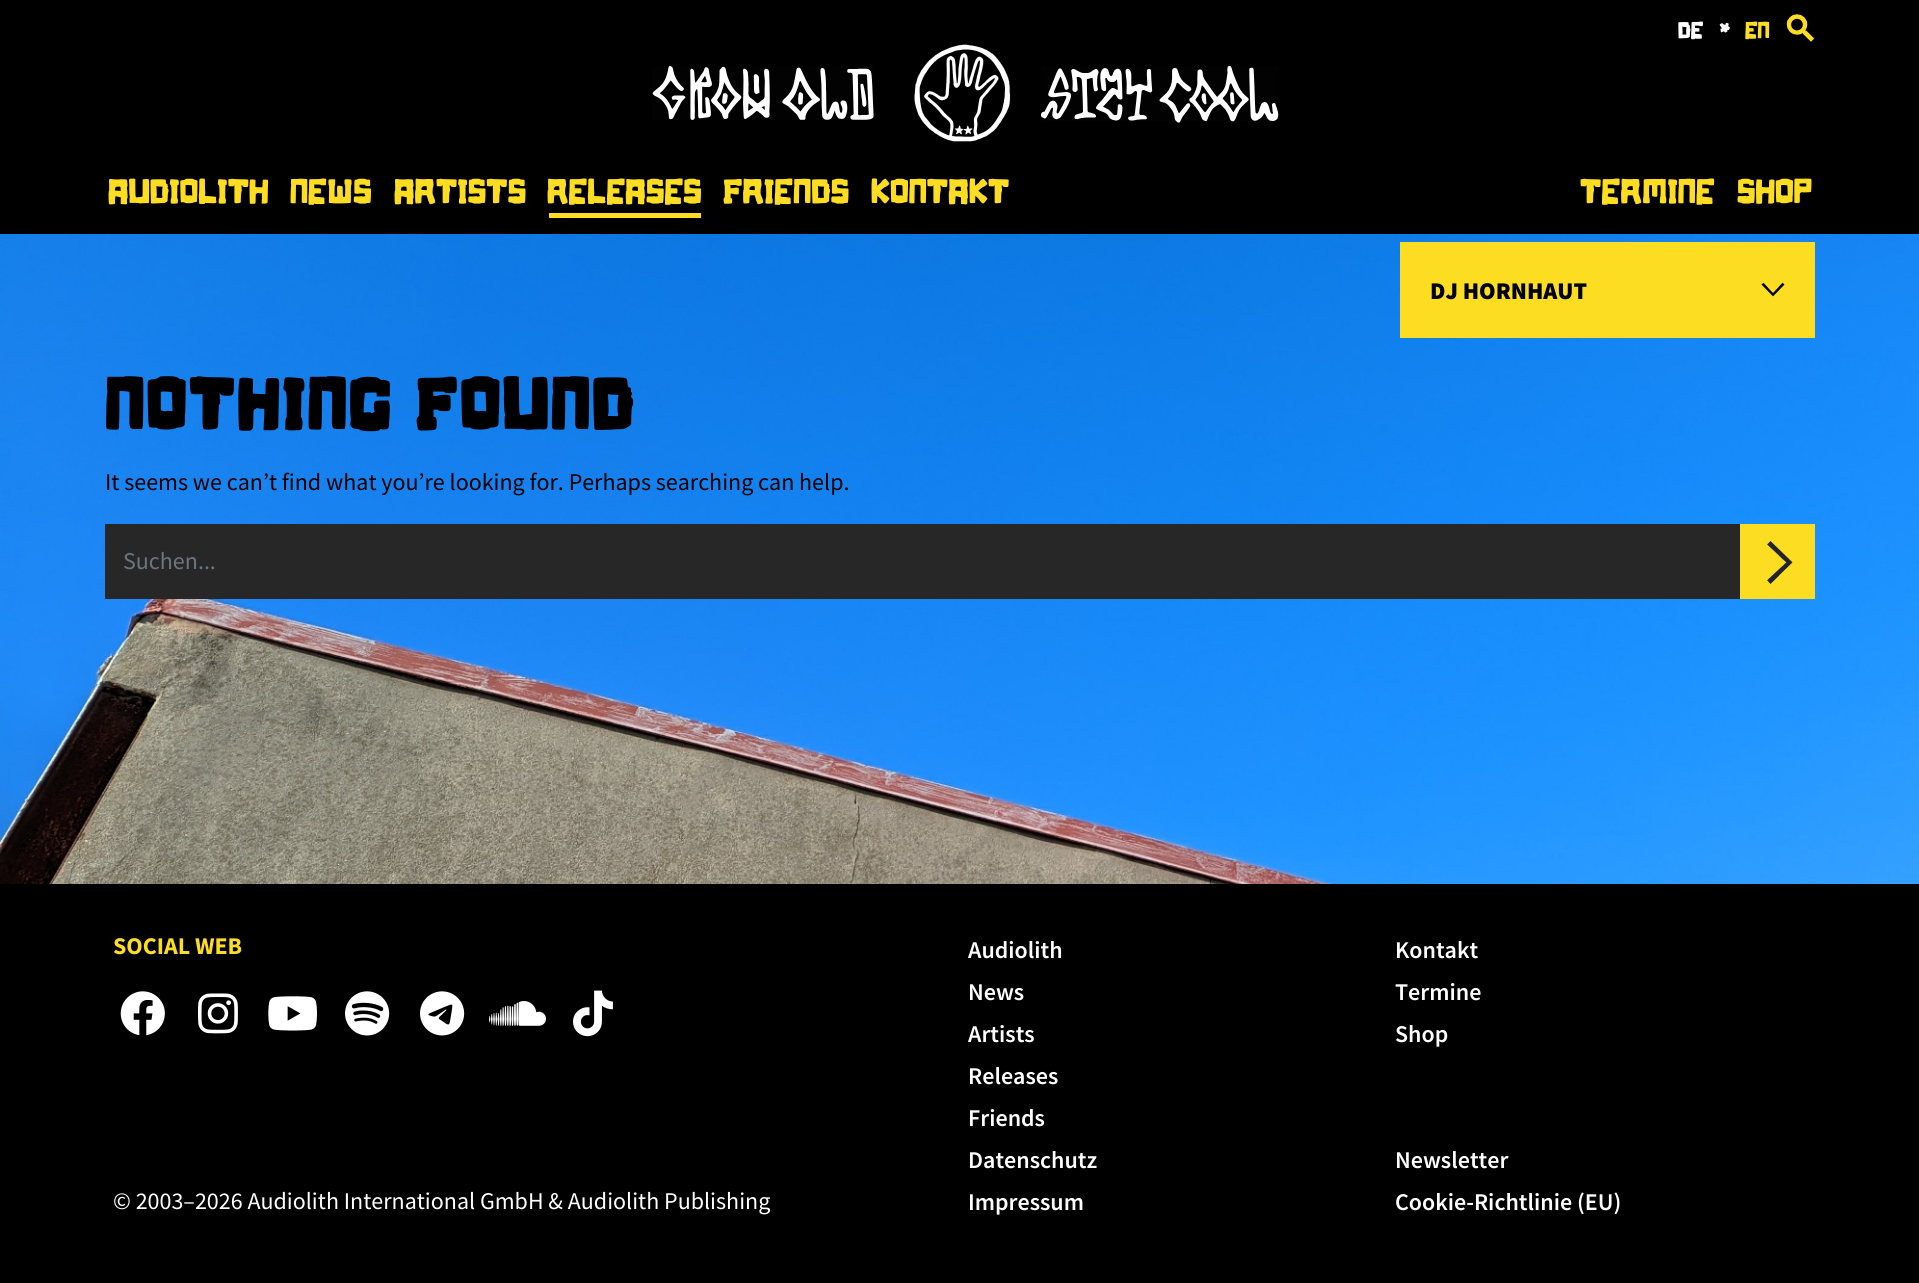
#include <cairo.h>
#include <math.h>
#include <stddef.h>

typedef struct { double x, y; const char *s; } line_t;

static void ink(cairo_t *ctx, unsigned color) {
    cairo_set_source_rgb(ctx, (color >> 16) / 255.0, (color >> 8 & 255) / 255.0, (color & 255) / 255.0);
}

static void write_spaced(cairo_t *ctx, double x, double y, const char *s, double letter, double word) {
    cairo_move_to(ctx, x, y);
    while (*s) {
        char ch[5] = {0};
        int n = 0;
        do ch[n++] = *s++; while ((*s & 0xC0) == 0x80);
        cairo_show_text(ctx, ch);
        cairo_rel_move_to(ctx, letter + word * (*ch == ' '), 0);
    }
}

static void paste(cairo_t *ctx, const char *path, double x, double y, double w, double h) {
    cairo_surface_t *image = cairo_image_surface_create_from_png(path);
    cairo_save(ctx);
    cairo_set_source_surface(ctx, image, x, y);
    cairo_rectangle(ctx, x, y, w, h);
    cairo_fill(ctx);
    cairo_restore(ctx);
    cairo_surface_destroy(image);
}

int main(void) {
    cairo_surface_t *surface = cairo_image_surface_create(CAIRO_FORMAT_RGB24, 1919, 1283);
    cairo_t *ctx = cairo_create(surface);
    cairo_font_options_t *options = cairo_font_options_create();
    cairo_font_options_set_hint_metrics(options, CAIRO_HINT_METRICS_OFF);
    cairo_font_options_set_hint_style(options, CAIRO_HINT_STYLE_NONE);
    cairo_set_font_options(ctx, options);
    cairo_set_miter_limit(ctx, 4);
    ink(ctx, 0xFFFFFF);
    cairo_paint(ctx);
    paste(ctx, "media/1.png", 0, 234, 1919, 650);
    ink(ctx, 0x000000);
    cairo_rectangle(ctx, 0, 0, 1919, 234);
    cairo_fill(ctx);
    paste(ctx, "media/2.png", 652, 66, 222, 54);
    paste(ctx, "media/3.png", 914, 44, 97, 98);
    paste(ctx, "media/4.png", 1041, 66, 238, 57);
    cairo_select_font_face(ctx, "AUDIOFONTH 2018", CAIRO_FONT_SLANT_NORMAL, CAIRO_FONT_WEIGHT_NORMAL);
    cairo_set_font_size(ctx, 24);
    ink(ctx, 0xFFFFFF);
    cairo_move_to(ctx, 1678, 38);
    cairo_show_text(ctx, "de");
    cairo_move_to(ctx, 1716, 38);
    cairo_show_text(ctx, "*");
    ink(ctx, 0xFCDD22);
    cairo_move_to(ctx, 1745, 38);
    cairo_show_text(ctx, "en");
    paste(ctx, "media/5.png", 1786, 14, 29, 28);
    cairo_set_font_size(ctx, 35.75);
    {
        static const line_t items[] = {
            {108, 203, "Audiolith"},
            {290, 203, "News"},
            {394, 203, "Artists"},
            {547, 203, "Releases"},
        };
        for (size_t i = 0; i < sizeof items / sizeof *items; i++) {
            write_spaced(ctx, items[i].x, items[i].y, items[i].s, 0.25, 0);
        }
    }
    cairo_rectangle(ctx, 549, 213, 152, 5);
    cairo_fill(ctx);
    {
        static const line_t items[] = {
            {723, 203, "Friends"},
            {871, 203, "Kontakt"},
            {1580, 203, "Termine"},
            {1737, 203, "Shop"},
        };
        for (size_t i = 0; i < sizeof items / sizeof *items; i++) {
            write_spaced(ctx, items[i].x, items[i].y, items[i].s, 0.25, 0);
        }
    }
    cairo_rectangle(ctx, 1400, 242, 415, 96);
    cairo_fill(ctx);
    cairo_select_font_face(ctx, "Source Sans Pro Black", CAIRO_FONT_SLANT_NORMAL, CAIRO_FONT_WEIGHT_NORMAL);
    cairo_set_font_size(ctx, 24);
    ink(ctx, 0x000000);
    cairo_move_to(ctx, 1430, 299);
    cairo_show_text(ctx, "DJ HORNHAUT");
    paste(ctx, "media/6.png", 1761, 282, 24, 15);
    cairo_select_font_face(ctx, "AUDIOFONTH 2018", CAIRO_FONT_SLANT_NORMAL, CAIRO_FONT_WEIGHT_BOLD);
    cairo_set_font_size(ctx, 74.5);
    write_spaced(ctx, 105, 429, "NOTHING FOUND", 4.25, 0);
    cairo_select_font_face(ctx, "Source Sans Pro", CAIRO_FONT_SLANT_NORMAL, CAIRO_FONT_WEIGHT_NORMAL);
    cairo_set_font_size(ctx, 24);
    cairo_move_to(ctx, 105, 490);
    cairo_show_text(ctx, "It seems we can’t find what you’re looking for. Perhaps searching can help.");
    ink(ctx, 0x272727);
    cairo_rectangle(ctx, 105, 524, 1635, 75);
    cairo_fill(ctx);
    ink(ctx, 0x6C757D);
    cairo_move_to(ctx, 123, 569);
    cairo_show_text(ctx, "Suchen...");
    ink(ctx, 0xFCDD22);
    cairo_rectangle(ctx, 1740, 524, 75, 75);
    cairo_fill(ctx);
    paste(ctx, "media/7.png", 1767, 541, 26, 43);
    ink(ctx, 0x000000);
    cairo_rectangle(ctx, 0, 884, 1919, 399);
    cairo_fill(ctx);
    cairo_select_font_face(ctx, "Source Sans Pro", CAIRO_FONT_SLANT_NORMAL, CAIRO_FONT_WEIGHT_BOLD);
    ink(ctx, 0xFCDD22);
    cairo_move_to(ctx, 113, 954);
    cairo_show_text(ctx, "SOCIAL WEB");
    paste(ctx, "media/8.png", 120, 991, 45, 45);
    paste(ctx, "media/9.png", 198, 993, 40, 41);
    paste(ctx, "media/10.png", 268, 996, 49, 35);
    paste(ctx, "media/11.png", 345, 991, 45, 45);
    paste(ctx, "media/12.png", 420, 991, 45, 45);
    paste(ctx, "media/13.png", 489, 1001, 57, 25);
    paste(ctx, "media/14.png", 573, 990, 40, 47);
    cairo_select_font_face(ctx, "Source Sans Pro SemiBold", CAIRO_FONT_SLANT_NORMAL, CAIRO_FONT_WEIGHT_NORMAL);
    ink(ctx, 0xFFFFFF);
    {
        static const line_t items[] = {
            {968, 958, "Audiolith"},
            {968, 1000, "News"},
            {968, 1042, "Artists"},
            {968, 1084, "Releases"},
            {968, 1126, "Friends"},
            {1395, 958, "Kontakt"},
            {1395, 1000, "Termine"},
            {1395, 1042, "Shop"},
        };
        for (size_t i = 0; i < sizeof items / sizeof *items; i++) {
            cairo_move_to(ctx, items[i].x, items[i].y);
            cairo_show_text(ctx, items[i].s);
        }
    }
    cairo_select_font_face(ctx, "Source Sans Pro", CAIRO_FONT_SLANT_NORMAL, CAIRO_FONT_WEIGHT_NORMAL);
    cairo_move_to(ctx, 113, 1209);
    cairo_show_text(ctx, "© 2003–2026 Audiolith International GmbH & Audiolith Publishing");
    cairo_select_font_face(ctx, "Source Sans Pro SemiBold", CAIRO_FONT_SLANT_NORMAL, CAIRO_FONT_WEIGHT_NORMAL);
    {
        static const line_t items[] = {
            {968, 1168, "Datenschutz"},
            {1395, 1168, "Newsletter"},
            {968, 1210, "Impressum"},
            {1395, 1210, "Cookie-Richtlinie (EU)"},
        };
        for (size_t i = 0; i < sizeof items / sizeof *items; i++) {
            cairo_move_to(ctx, items[i].x, items[i].y);
            cairo_show_text(ctx, items[i].s);
        }
    }
    cairo_surface_write_to_png(surface, "image.png");
    cairo_font_options_destroy(options);
    cairo_destroy(ctx);
    cairo_surface_destroy(surface);
    return 0;
}
